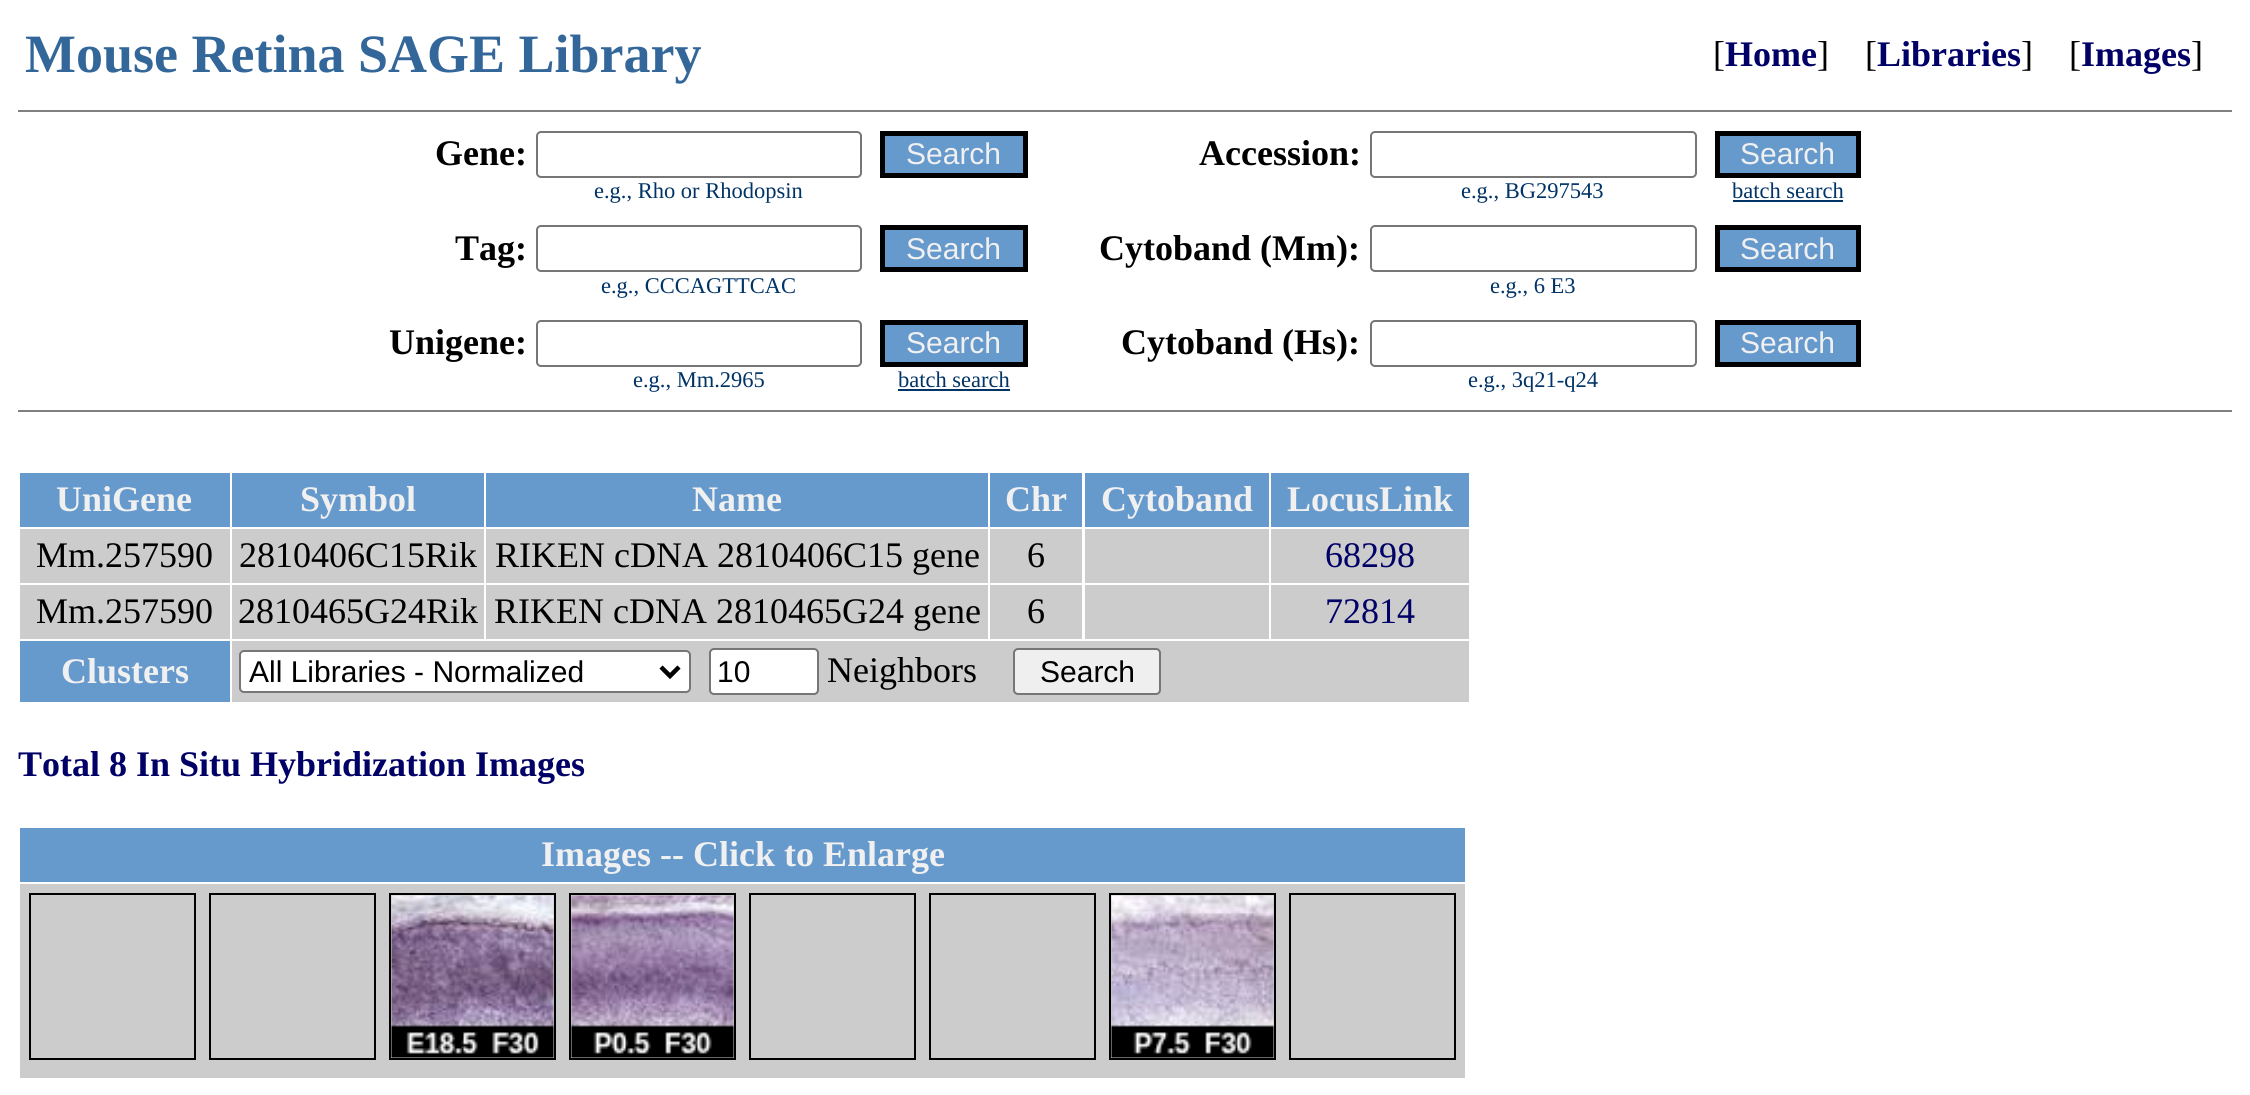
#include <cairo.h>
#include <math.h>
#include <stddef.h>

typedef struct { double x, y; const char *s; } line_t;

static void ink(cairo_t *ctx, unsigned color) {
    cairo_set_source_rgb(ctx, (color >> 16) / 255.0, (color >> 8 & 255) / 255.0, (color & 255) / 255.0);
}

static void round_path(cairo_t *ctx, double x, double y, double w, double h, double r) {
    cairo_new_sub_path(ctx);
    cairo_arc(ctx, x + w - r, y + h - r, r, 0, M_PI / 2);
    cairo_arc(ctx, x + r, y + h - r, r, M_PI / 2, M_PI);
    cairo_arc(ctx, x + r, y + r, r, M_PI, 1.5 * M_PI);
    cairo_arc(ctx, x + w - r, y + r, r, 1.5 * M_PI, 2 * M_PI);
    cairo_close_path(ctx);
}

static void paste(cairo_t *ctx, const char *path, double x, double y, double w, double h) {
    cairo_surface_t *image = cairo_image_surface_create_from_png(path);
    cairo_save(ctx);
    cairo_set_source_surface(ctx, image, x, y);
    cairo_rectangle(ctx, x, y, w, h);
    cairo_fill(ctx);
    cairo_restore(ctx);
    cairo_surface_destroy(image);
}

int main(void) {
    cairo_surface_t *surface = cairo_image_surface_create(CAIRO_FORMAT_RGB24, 2250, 1095);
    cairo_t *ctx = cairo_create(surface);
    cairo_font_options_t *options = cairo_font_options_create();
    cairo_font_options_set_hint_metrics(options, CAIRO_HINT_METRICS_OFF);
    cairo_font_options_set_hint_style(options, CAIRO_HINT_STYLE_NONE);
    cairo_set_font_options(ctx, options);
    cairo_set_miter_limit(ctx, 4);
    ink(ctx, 0xFFFFFF);
    cairo_paint(ctx);
    cairo_select_font_face(ctx, "Liberation Serif", CAIRO_FONT_SLANT_NORMAL, CAIRO_FONT_WEIGHT_BOLD);
    cairo_set_font_size(ctx, 54);
    ink(ctx, 0x336699);
    cairo_move_to(ctx, 25, 72);
    cairo_show_text(ctx, "Mouse Retina SAGE Library");
    cairo_select_font_face(ctx, "Liberation Serif", CAIRO_FONT_SLANT_NORMAL, CAIRO_FONT_WEIGHT_NORMAL);
    cairo_set_font_size(ctx, 36);
    ink(ctx, 0x000000);
    cairo_move_to(ctx, 1713, 66);
    cairo_show_text(ctx, "[");
    cairo_select_font_face(ctx, "Liberation Serif", CAIRO_FONT_SLANT_NORMAL, CAIRO_FONT_WEIGHT_BOLD);
    ink(ctx, 0x000066);
    cairo_move_to(ctx, 1725, 66);
    cairo_show_text(ctx, "Home");
    cairo_select_font_face(ctx, "Liberation Serif", CAIRO_FONT_SLANT_NORMAL, CAIRO_FONT_WEIGHT_NORMAL);
    ink(ctx, 0x000000);
    cairo_move_to(ctx, 1817, 66);
    cairo_show_text(ctx, "]    [");
    cairo_select_font_face(ctx, "Liberation Serif", CAIRO_FONT_SLANT_NORMAL, CAIRO_FONT_WEIGHT_BOLD);
    ink(ctx, 0x000066);
    cairo_move_to(ctx, 1877, 66);
    cairo_show_text(ctx, "Libraries");
    cairo_select_font_face(ctx, "Liberation Serif", CAIRO_FONT_SLANT_NORMAL, CAIRO_FONT_WEIGHT_NORMAL);
    ink(ctx, 0x000000);
    cairo_move_to(ctx, 2021, 66);
    cairo_show_text(ctx, "]    [");
    cairo_select_font_face(ctx, "Liberation Serif", CAIRO_FONT_SLANT_NORMAL, CAIRO_FONT_WEIGHT_BOLD);
    ink(ctx, 0x000066);
    cairo_move_to(ctx, 2081, 66);
    cairo_show_text(ctx, "Images");
    cairo_select_font_face(ctx, "Liberation Serif", CAIRO_FONT_SLANT_NORMAL, CAIRO_FONT_WEIGHT_NORMAL);
    ink(ctx, 0x000000);
    cairo_move_to(ctx, 2191, 66);
    cairo_show_text(ctx, "]");
    ink(ctx, 0x808080);
    cairo_rectangle(ctx, 18, 110, 2214, 2);
    cairo_fill(ctx);
    cairo_select_font_face(ctx, "Liberation Serif", CAIRO_FONT_SLANT_NORMAL, CAIRO_FONT_WEIGHT_BOLD);
    ink(ctx, 0x000000);
    cairo_move_to(ctx, 435, 165);
    cairo_show_text(ctx, "Gene:");
    round_path(ctx, 537, 132, 324, 45, 4);
    ink(ctx, 0x767676);
    cairo_stroke(ctx);
    ink(ctx, 0x6699CC);
    cairo_rectangle(ctx, 882.5, 133.5, 143, 42);
    cairo_fill_preserve(ctx);
    ink(ctx, 0x000000);
    cairo_set_line_width(ctx, 5);
    cairo_stroke(ctx);
    cairo_select_font_face(ctx, "Liberation Sans", CAIRO_FONT_SLANT_NORMAL, CAIRO_FONT_WEIGHT_NORMAL);
    cairo_set_font_size(ctx, 30);
    ink(ctx, 0xF0F0F0);
    cairo_move_to(ctx, 906, 164);
    cairo_show_text(ctx, "Search");
    cairo_select_font_face(ctx, "Liberation Serif", CAIRO_FONT_SLANT_NORMAL, CAIRO_FONT_WEIGHT_BOLD);
    cairo_set_font_size(ctx, 36);
    ink(ctx, 0x000000);
    cairo_move_to(ctx, 1199, 165);
    cairo_show_text(ctx, "Accession:");
    round_path(ctx, 1371, 132, 325, 45, 4);
    ink(ctx, 0x767676);
    cairo_set_line_width(ctx, 2);
    cairo_stroke(ctx);
    ink(ctx, 0x6699CC);
    cairo_rectangle(ctx, 1717.5, 133.5, 141, 42);
    cairo_fill_preserve(ctx);
    ink(ctx, 0x000000);
    cairo_set_line_width(ctx, 5);
    cairo_stroke(ctx);
    cairo_select_font_face(ctx, "Liberation Sans", CAIRO_FONT_SLANT_NORMAL, CAIRO_FONT_WEIGHT_NORMAL);
    cairo_set_font_size(ctx, 30);
    ink(ctx, 0xF0F0F0);
    cairo_move_to(ctx, 1740, 164);
    cairo_show_text(ctx, "Search");
    cairo_select_font_face(ctx, "Liberation Serif", CAIRO_FONT_SLANT_NORMAL, CAIRO_FONT_WEIGHT_NORMAL);
    cairo_set_font_size(ctx, 22.5);
    ink(ctx, 0x003366);
    {
        static const line_t items[] = {
            {594, 198, "e.g., Rho or Rhodopsin"},
            {1461, 198, "e.g., BG297543"},
            {1732, 198, "batch search"},
        };
        for (size_t i = 0; i < sizeof items / sizeof *items; i++) {
            cairo_move_to(ctx, items[i].x, items[i].y);
            cairo_show_text(ctx, items[i].s);
        }
    }
    cairo_rectangle(ctx, 1733, 200, 110, 2);
    cairo_fill(ctx);
    cairo_select_font_face(ctx, "Liberation Serif", CAIRO_FONT_SLANT_NORMAL, CAIRO_FONT_WEIGHT_BOLD);
    cairo_set_font_size(ctx, 36);
    ink(ctx, 0x000000);
    cairo_move_to(ctx, 455, 260);
    cairo_show_text(ctx, "Tag:");
    round_path(ctx, 537, 226, 324, 45, 4);
    ink(ctx, 0x767676);
    cairo_set_line_width(ctx, 2);
    cairo_stroke(ctx);
    ink(ctx, 0x6699CC);
    cairo_rectangle(ctx, 882.5, 227.5, 143, 42);
    cairo_fill_preserve(ctx);
    ink(ctx, 0x000000);
    cairo_set_line_width(ctx, 5);
    cairo_stroke(ctx);
    cairo_select_font_face(ctx, "Liberation Sans", CAIRO_FONT_SLANT_NORMAL, CAIRO_FONT_WEIGHT_NORMAL);
    cairo_set_font_size(ctx, 30);
    ink(ctx, 0xF0F0F0);
    cairo_move_to(ctx, 906, 259);
    cairo_show_text(ctx, "Search");
    cairo_select_font_face(ctx, "Liberation Serif", CAIRO_FONT_SLANT_NORMAL, CAIRO_FONT_WEIGHT_BOLD);
    cairo_set_font_size(ctx, 36);
    ink(ctx, 0x000000);
    cairo_move_to(ctx, 1099, 260);
    cairo_show_text(ctx, "Cytoband (Mm):");
    round_path(ctx, 1371, 226, 325, 45, 4);
    ink(ctx, 0x767676);
    cairo_set_line_width(ctx, 2);
    cairo_stroke(ctx);
    ink(ctx, 0x6699CC);
    cairo_rectangle(ctx, 1717.5, 227.5, 141, 42);
    cairo_fill_preserve(ctx);
    ink(ctx, 0x000000);
    cairo_set_line_width(ctx, 5);
    cairo_stroke(ctx);
    cairo_select_font_face(ctx, "Liberation Sans", CAIRO_FONT_SLANT_NORMAL, CAIRO_FONT_WEIGHT_NORMAL);
    cairo_set_font_size(ctx, 30);
    ink(ctx, 0xF0F0F0);
    cairo_move_to(ctx, 1740, 259);
    cairo_show_text(ctx, "Search");
    cairo_select_font_face(ctx, "Liberation Serif", CAIRO_FONT_SLANT_NORMAL, CAIRO_FONT_WEIGHT_NORMAL);
    cairo_set_font_size(ctx, 22.5);
    ink(ctx, 0x003366);
    cairo_move_to(ctx, 601, 293);
    cairo_show_text(ctx, "e.g., CCCAGTTCAC");
    cairo_move_to(ctx, 1490, 293);
    cairo_show_text(ctx, "e.g., 6 E3");
    cairo_select_font_face(ctx, "Liberation Serif", CAIRO_FONT_SLANT_NORMAL, CAIRO_FONT_WEIGHT_BOLD);
    cairo_set_font_size(ctx, 36);
    ink(ctx, 0x000000);
    cairo_move_to(ctx, 389, 354);
    cairo_show_text(ctx, "Unigene:");
    round_path(ctx, 537, 321, 324, 45, 4);
    ink(ctx, 0x767676);
    cairo_set_line_width(ctx, 2);
    cairo_stroke(ctx);
    ink(ctx, 0x6699CC);
    cairo_rectangle(ctx, 882.5, 322.5, 143, 42);
    cairo_fill_preserve(ctx);
    ink(ctx, 0x000000);
    cairo_set_line_width(ctx, 5);
    cairo_stroke(ctx);
    cairo_select_font_face(ctx, "Liberation Sans", CAIRO_FONT_SLANT_NORMAL, CAIRO_FONT_WEIGHT_NORMAL);
    cairo_set_font_size(ctx, 30);
    ink(ctx, 0xF0F0F0);
    cairo_move_to(ctx, 906, 353);
    cairo_show_text(ctx, "Search");
    cairo_select_font_face(ctx, "Liberation Serif", CAIRO_FONT_SLANT_NORMAL, CAIRO_FONT_WEIGHT_BOLD);
    cairo_set_font_size(ctx, 36);
    ink(ctx, 0x000000);
    cairo_move_to(ctx, 1121, 354);
    cairo_show_text(ctx, "Cytoband (Hs):");
    round_path(ctx, 1371, 321, 325, 45, 4);
    ink(ctx, 0x767676);
    cairo_set_line_width(ctx, 2);
    cairo_stroke(ctx);
    ink(ctx, 0x6699CC);
    cairo_rectangle(ctx, 1717.5, 322.5, 141, 42);
    cairo_fill_preserve(ctx);
    ink(ctx, 0x000000);
    cairo_set_line_width(ctx, 5);
    cairo_stroke(ctx);
    cairo_select_font_face(ctx, "Liberation Sans", CAIRO_FONT_SLANT_NORMAL, CAIRO_FONT_WEIGHT_NORMAL);
    cairo_set_font_size(ctx, 30);
    ink(ctx, 0xF0F0F0);
    cairo_move_to(ctx, 1740, 353);
    cairo_show_text(ctx, "Search");
    cairo_select_font_face(ctx, "Liberation Serif", CAIRO_FONT_SLANT_NORMAL, CAIRO_FONT_WEIGHT_NORMAL);
    cairo_set_font_size(ctx, 22.5);
    ink(ctx, 0x003366);
    cairo_move_to(ctx, 633, 387);
    cairo_show_text(ctx, "e.g., Mm.2965");
    cairo_move_to(ctx, 898, 387);
    cairo_show_text(ctx, "batch search");
    cairo_rectangle(ctx, 898, 389, 112, 2);
    cairo_fill(ctx);
    cairo_move_to(ctx, 1468, 387);
    cairo_show_text(ctx, "e.g., 3q21-q24");
    ink(ctx, 0x808080);
    cairo_rectangle(ctx, 18, 410, 2214, 2);
    cairo_fill(ctx);
    ink(ctx, 0x6699CC);
    cairo_rectangle(ctx, 20, 473, 210, 54);
    cairo_fill(ctx);
    cairo_select_font_face(ctx, "Liberation Serif", CAIRO_FONT_SLANT_NORMAL, CAIRO_FONT_WEIGHT_BOLD);
    cairo_set_font_size(ctx, 36);
    ink(ctx, 0xF0F0F0);
    cairo_move_to(ctx, 56, 511);
    cairo_show_text(ctx, "UniGene");
    ink(ctx, 0x6699CC);
    cairo_rectangle(ctx, 232, 473, 252, 54);
    cairo_fill(ctx);
    ink(ctx, 0xF0F0F0);
    cairo_move_to(ctx, 300, 511);
    cairo_show_text(ctx, "Symbol");
    ink(ctx, 0x6699CC);
    cairo_rectangle(ctx, 486, 473, 502, 54);
    cairo_fill(ctx);
    ink(ctx, 0xF0F0F0);
    cairo_move_to(ctx, 692, 511);
    cairo_show_text(ctx, "Name");
    ink(ctx, 0x6699CC);
    cairo_rectangle(ctx, 990, 473, 92, 54);
    cairo_fill(ctx);
    ink(ctx, 0xF0F0F0);
    cairo_move_to(ctx, 1005, 511);
    cairo_show_text(ctx, "Chr");
    ink(ctx, 0x6699CC);
    cairo_rectangle(ctx, 1085, 473, 184, 54);
    cairo_fill(ctx);
    ink(ctx, 0xF0F0F0);
    cairo_move_to(ctx, 1101, 511);
    cairo_show_text(ctx, "Cytoband");
    ink(ctx, 0x6699CC);
    cairo_rectangle(ctx, 1271, 473, 198, 54);
    cairo_fill(ctx);
    ink(ctx, 0xF0F0F0);
    cairo_move_to(ctx, 1287, 511);
    cairo_show_text(ctx, "LocusLink");
    ink(ctx, 0xCCCCCC);
    cairo_rectangle(ctx, 20, 529, 210, 54);
    cairo_fill(ctx);
    cairo_select_font_face(ctx, "Liberation Serif", CAIRO_FONT_SLANT_NORMAL, CAIRO_FONT_WEIGHT_NORMAL);
    ink(ctx, 0x000000);
    cairo_move_to(ctx, 36, 567);
    cairo_show_text(ctx, "Mm.257590");
    ink(ctx, 0xCCCCCC);
    cairo_rectangle(ctx, 232, 529, 252, 54);
    cairo_fill(ctx);
    ink(ctx, 0x000000);
    cairo_move_to(ctx, 239, 567);
    cairo_show_text(ctx, "2810406C15Rik");
    ink(ctx, 0xCCCCCC);
    cairo_rectangle(ctx, 486, 529, 502, 54);
    cairo_fill(ctx);
    ink(ctx, 0x000000);
    cairo_move_to(ctx, 495, 567);
    cairo_show_text(ctx, "RIKEN cDNA 2810406C15 gene");
    ink(ctx, 0xCCCCCC);
    cairo_rectangle(ctx, 990, 529, 92, 54);
    cairo_fill(ctx);
    ink(ctx, 0x000000);
    cairo_move_to(ctx, 1027, 567);
    cairo_show_text(ctx, "6");
    ink(ctx, 0xCCCCCC);
    cairo_rectangle(ctx, 1085, 529, 184, 54);
    cairo_fill(ctx);
    cairo_rectangle(ctx, 1271, 529, 198, 54);
    cairo_fill(ctx);
    ink(ctx, 0x000066);
    cairo_move_to(ctx, 1325, 567);
    cairo_show_text(ctx, "68298");
    ink(ctx, 0xCCCCCC);
    cairo_rectangle(ctx, 20, 585, 210, 54);
    cairo_fill(ctx);
    ink(ctx, 0x000000);
    cairo_move_to(ctx, 36, 623);
    cairo_show_text(ctx, "Mm.257590");
    ink(ctx, 0xCCCCCC);
    cairo_rectangle(ctx, 232, 585, 252, 54);
    cairo_fill(ctx);
    ink(ctx, 0x000000);
    cairo_move_to(ctx, 238, 623);
    cairo_show_text(ctx, "2810465G24Rik");
    ink(ctx, 0xCCCCCC);
    cairo_rectangle(ctx, 486, 585, 502, 54);
    cairo_fill(ctx);
    ink(ctx, 0x000000);
    cairo_move_to(ctx, 494, 623);
    cairo_show_text(ctx, "RIKEN cDNA 2810465G24 gene");
    ink(ctx, 0xCCCCCC);
    cairo_rectangle(ctx, 990, 585, 92, 54);
    cairo_fill(ctx);
    ink(ctx, 0x000000);
    cairo_move_to(ctx, 1027, 623);
    cairo_show_text(ctx, "6");
    ink(ctx, 0xCCCCCC);
    cairo_rectangle(ctx, 1085, 585, 184, 54);
    cairo_fill(ctx);
    cairo_rectangle(ctx, 1271, 585, 198, 54);
    cairo_fill(ctx);
    ink(ctx, 0x000066);
    cairo_move_to(ctx, 1325, 623);
    cairo_show_text(ctx, "72814");
    ink(ctx, 0x6699CC);
    cairo_rectangle(ctx, 20, 641, 210, 61);
    cairo_fill(ctx);
    cairo_select_font_face(ctx, "Liberation Serif", CAIRO_FONT_SLANT_NORMAL, CAIRO_FONT_WEIGHT_BOLD);
    ink(ctx, 0xF0F0F0);
    cairo_move_to(ctx, 61, 683);
    cairo_show_text(ctx, "Clusters");
    ink(ctx, 0xCCCCCC);
    cairo_rectangle(ctx, 232, 641, 1237, 61);
    cairo_fill(ctx);
    ink(ctx, 0xFFFFFF);
    round_path(ctx, 240, 651, 450, 41, 4);
    cairo_fill_preserve(ctx);
    ink(ctx, 0x767676);
    cairo_set_line_width(ctx, 2);
    cairo_stroke(ctx);
    cairo_new_path(ctx);
    cairo_move_to(ctx, 661, 667);
    cairo_line_to(ctx, 670, 676);
    cairo_line_to(ctx, 679, 667);
    ink(ctx, 0x000000);
    cairo_set_line_width(ctx, 4.5);
    cairo_stroke(ctx);
    cairo_select_font_face(ctx, "Liberation Sans", CAIRO_FONT_SLANT_NORMAL, CAIRO_FONT_WEIGHT_NORMAL);
    cairo_set_font_size(ctx, 30);
    cairo_move_to(ctx, 249, 682);
    cairo_show_text(ctx, "All Libraries - Normalized");
    ink(ctx, 0xFFFFFF);
    round_path(ctx, 710, 649, 108, 45, 4);
    cairo_fill_preserve(ctx);
    ink(ctx, 0x767676);
    cairo_set_line_width(ctx, 2);
    cairo_stroke(ctx);
    ink(ctx, 0x000000);
    cairo_move_to(ctx, 717, 682);
    cairo_show_text(ctx, "10");
    cairo_select_font_face(ctx, "Liberation Serif", CAIRO_FONT_SLANT_NORMAL, CAIRO_FONT_WEIGHT_NORMAL);
    cairo_set_font_size(ctx, 36);
    cairo_move_to(ctx, 827, 682);
    cairo_show_text(ctx, "Neighbors");
    ink(ctx, 0xEFEFEF);
    round_path(ctx, 1014, 649, 146, 45, 4);
    cairo_fill_preserve(ctx);
    ink(ctx, 0x767676);
    cairo_stroke(ctx);
    cairo_select_font_face(ctx, "Liberation Sans", CAIRO_FONT_SLANT_NORMAL, CAIRO_FONT_WEIGHT_NORMAL);
    cairo_set_font_size(ctx, 30);
    ink(ctx, 0x000000);
    cairo_move_to(ctx, 1040, 682);
    cairo_show_text(ctx, "Search");
    cairo_select_font_face(ctx, "Liberation Serif", CAIRO_FONT_SLANT_NORMAL, CAIRO_FONT_WEIGHT_BOLD);
    cairo_set_font_size(ctx, 36);
    ink(ctx, 0x000066);
    cairo_move_to(ctx, 18, 776);
    cairo_show_text(ctx, "Total 8 In Situ Hybridization Images");
    ink(ctx, 0x6699CC);
    cairo_rectangle(ctx, 20, 828, 1445, 54);
    cairo_fill(ctx);
    ink(ctx, 0xF0F0F0);
    cairo_move_to(ctx, 541, 866);
    cairo_show_text(ctx, "Images -- Click to Enlarge");
    ink(ctx, 0xCCCCCC);
    cairo_rectangle(ctx, 20, 884, 1445, 194);
    cairo_fill(ctx);
    cairo_rectangle(ctx, 30, 894, 165, 165);
    ink(ctx, 0x000000);
    cairo_stroke(ctx);
    cairo_rectangle(ctx, 210, 894, 165, 165);
    cairo_stroke(ctx);
    cairo_rectangle(ctx, 390, 894, 165, 165);
    cairo_stroke(ctx);
    cairo_rectangle(ctx, 570, 894, 165, 165);
    cairo_stroke(ctx);
    cairo_rectangle(ctx, 750, 894, 165, 165);
    cairo_stroke(ctx);
    cairo_rectangle(ctx, 930, 894, 165, 165);
    cairo_stroke(ctx);
    cairo_rectangle(ctx, 1110, 894, 165, 165);
    cairo_stroke(ctx);
    cairo_rectangle(ctx, 1290, 894, 165, 165);
    cairo_stroke(ctx);
    paste(ctx, "media/1.png", 391, 895, 163, 163);
    paste(ctx, "media/2.png", 571, 895, 163, 163);
    paste(ctx, "media/3.png", 1111, 895, 163, 163);
    cairo_surface_write_to_png(surface, "image.png");
    cairo_font_options_destroy(options);
    cairo_destroy(ctx);
    cairo_surface_destroy(surface);
    return 0;
}
